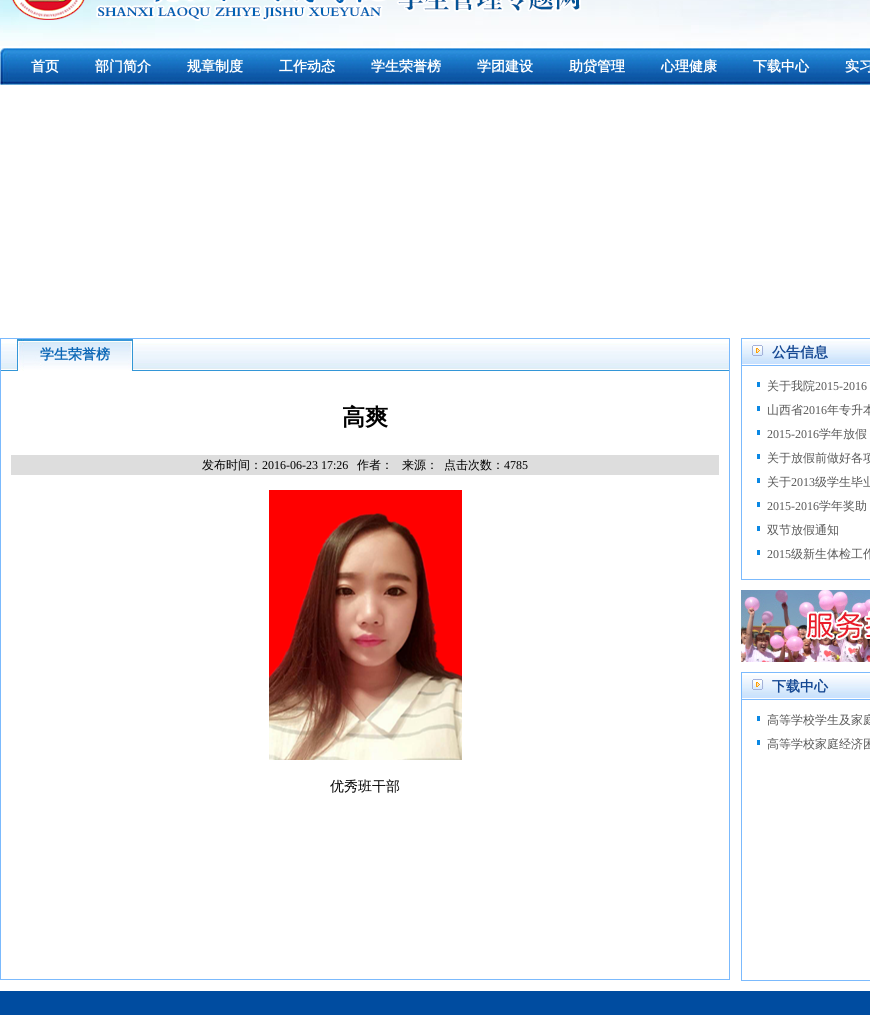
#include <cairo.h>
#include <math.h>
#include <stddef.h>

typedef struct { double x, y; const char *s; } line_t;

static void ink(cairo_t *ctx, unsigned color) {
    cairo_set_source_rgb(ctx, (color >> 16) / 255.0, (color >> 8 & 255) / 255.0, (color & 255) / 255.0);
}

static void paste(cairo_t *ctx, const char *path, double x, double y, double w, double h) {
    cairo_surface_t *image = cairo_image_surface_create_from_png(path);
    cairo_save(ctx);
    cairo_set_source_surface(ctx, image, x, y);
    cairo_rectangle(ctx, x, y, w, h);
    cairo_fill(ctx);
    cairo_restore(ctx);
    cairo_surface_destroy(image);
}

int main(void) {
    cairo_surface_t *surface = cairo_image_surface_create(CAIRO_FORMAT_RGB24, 870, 1015);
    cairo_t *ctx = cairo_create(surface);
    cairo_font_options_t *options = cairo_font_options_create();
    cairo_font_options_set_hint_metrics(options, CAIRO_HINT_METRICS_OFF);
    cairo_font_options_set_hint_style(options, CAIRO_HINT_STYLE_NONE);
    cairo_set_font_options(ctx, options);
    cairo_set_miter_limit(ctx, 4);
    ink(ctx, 0xFFFFFF);
    cairo_paint(ctx);
    paste(ctx, "media/1.png", 0, 0, 870, 46);
    paste(ctx, "media/2.png", 12, 0, 569, 21);
    paste(ctx, "media/3.png", 10, 48, 860, 37);
    paste(ctx, "media/4.png", 0, 48, 10, 37);
    cairo_select_font_face(ctx, "WenQuanYi Zen Hei", CAIRO_FONT_SLANT_NORMAL, CAIRO_FONT_WEIGHT_BOLD);
    cairo_set_font_size(ctx, 14);
    ink(ctx, 0xFFFFFF);
    {
        static const line_t items[] = {
            {31, 71, "首页"},
            {95, 71, "部门简介"},
            {187, 71, "规章制度"},
            {279, 71, "工作动态"},
            {371, 71, "学生荣誉榜"},
            {477, 71, "学团建设"},
            {569, 71, "助贷管理"},
            {661, 71, "心理健康"},
            {753, 71, "下载中心"},
            {845, 71, "实习"},
        };
        for (size_t i = 0; i < sizeof items / sizeof *items; i++) {
            cairo_move_to(ctx, items[i].x, items[i].y);
            cairo_show_text(ctx, items[i].s);
        }
    }
    cairo_rectangle(ctx, 0.5, 338.5, 729, 641);
    ink(ctx, 0x7BBAFD);
    cairo_set_line_width(ctx, 1);
    cairo_stroke(ctx);
    paste(ctx, "media/5.png", 1, 343, 728, 28);
    paste(ctx, "media/6.png", 16, 339, 117, 32);
    ink(ctx, 0x0C67B6);
    cairo_move_to(ctx, 40, 359);
    cairo_show_text(ctx, "学生荣誉榜");
    cairo_set_font_size(ctx, 23);
    ink(ctx, 0x000000);
    cairo_move_to(ctx, 342, 425);
    cairo_show_text(ctx, "高爽");
    ink(ctx, 0xDDDDDD);
    cairo_rectangle(ctx, 11, 455, 708, 20);
    cairo_fill(ctx);
    cairo_select_font_face(ctx, "WenQuanYi Zen Hei Medium", CAIRO_FONT_SLANT_NORMAL, CAIRO_FONT_WEIGHT_NORMAL);
    cairo_set_font_size(ctx, 12);
    ink(ctx, 0x000000);
    cairo_move_to(ctx, 202, 469);
    cairo_show_text(ctx, "发布时间：");
    cairo_select_font_face(ctx, "Liberation Serif", CAIRO_FONT_SLANT_NORMAL, CAIRO_FONT_WEIGHT_NORMAL);
    cairo_move_to(ctx, 262, 469);
    cairo_show_text(ctx, "2016-06-23 17:26");
    cairo_select_font_face(ctx, "WenQuanYi Zen Hei Medium", CAIRO_FONT_SLANT_NORMAL, CAIRO_FONT_WEIGHT_NORMAL);
    {
        static const line_t items[] = {
            {357, 469, "作者："},
            {402, 469, "来源："},
            {444, 469, "点击次数："},
        };
        for (size_t i = 0; i < sizeof items / sizeof *items; i++) {
            cairo_move_to(ctx, items[i].x, items[i].y);
            cairo_show_text(ctx, items[i].s);
        }
    }
    cairo_select_font_face(ctx, "Liberation Serif", CAIRO_FONT_SLANT_NORMAL, CAIRO_FONT_WEIGHT_NORMAL);
    cairo_move_to(ctx, 504, 469);
    cairo_show_text(ctx, "4785");
    paste(ctx, "media/7.png", 269, 490, 193, 270);
    cairo_select_font_face(ctx, "WenQuanYi Zen Hei Medium", CAIRO_FONT_SLANT_NORMAL, CAIRO_FONT_WEIGHT_NORMAL);
    cairo_set_font_size(ctx, 14);
    cairo_move_to(ctx, 330, 791);
    cairo_show_text(ctx, "优秀班干部");
    cairo_rectangle(ctx, 741.5, 338.5, 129, 241);
    ink(ctx, 0x7BBAFD);
    cairo_stroke(ctx);
    paste(ctx, "media/8.png", 742, 341, 128, 25);
    paste(ctx, "media/9.png", 752, 345, 12, 11);
    cairo_select_font_face(ctx, "WenQuanYi Zen Hei", CAIRO_FONT_SLANT_NORMAL, CAIRO_FONT_WEIGHT_BOLD);
    ink(ctx, 0x154893);
    cairo_move_to(ctx, 772, 357);
    cairo_show_text(ctx, "公告信息");
    ink(ctx, 0x0B88E4);
    cairo_rectangle(ctx, 757, 382, 3, 5);
    cairo_fill(ctx);
    cairo_select_font_face(ctx, "WenQuanYi Zen Hei Medium", CAIRO_FONT_SLANT_NORMAL, CAIRO_FONT_WEIGHT_NORMAL);
    cairo_set_font_size(ctx, 12);
    ink(ctx, 0x585858);
    cairo_move_to(ctx, 767, 390);
    cairo_show_text(ctx, "关于我院");
    cairo_select_font_face(ctx, "Liberation Serif", CAIRO_FONT_SLANT_NORMAL, CAIRO_FONT_WEIGHT_NORMAL);
    cairo_move_to(ctx, 815, 390);
    cairo_show_text(ctx, "2015-2016");
    ink(ctx, 0x0B88E4);
    cairo_rectangle(ctx, 757, 406, 3, 5);
    cairo_fill(ctx);
    cairo_select_font_face(ctx, "WenQuanYi Zen Hei Medium", CAIRO_FONT_SLANT_NORMAL, CAIRO_FONT_WEIGHT_NORMAL);
    ink(ctx, 0x585858);
    cairo_move_to(ctx, 767, 414);
    cairo_show_text(ctx, "山西省");
    cairo_select_font_face(ctx, "Liberation Serif", CAIRO_FONT_SLANT_NORMAL, CAIRO_FONT_WEIGHT_NORMAL);
    cairo_move_to(ctx, 803, 414);
    cairo_show_text(ctx, "2016");
    cairo_select_font_face(ctx, "WenQuanYi Zen Hei Medium", CAIRO_FONT_SLANT_NORMAL, CAIRO_FONT_WEIGHT_NORMAL);
    cairo_move_to(ctx, 827, 414);
    cairo_show_text(ctx, "年专升本");
    ink(ctx, 0x0B88E4);
    cairo_rectangle(ctx, 757, 430, 3, 5);
    cairo_fill(ctx);
    cairo_select_font_face(ctx, "Liberation Serif", CAIRO_FONT_SLANT_NORMAL, CAIRO_FONT_WEIGHT_NORMAL);
    ink(ctx, 0x585858);
    cairo_move_to(ctx, 767, 438);
    cairo_show_text(ctx, "2015-2016");
    cairo_select_font_face(ctx, "WenQuanYi Zen Hei Medium", CAIRO_FONT_SLANT_NORMAL, CAIRO_FONT_WEIGHT_NORMAL);
    cairo_move_to(ctx, 819, 438);
    cairo_show_text(ctx, "学年放假");
    ink(ctx, 0x0B88E4);
    cairo_rectangle(ctx, 757, 454, 3, 5);
    cairo_fill(ctx);
    ink(ctx, 0x585858);
    cairo_move_to(ctx, 767, 462);
    cairo_show_text(ctx, "关于放假前做好各项");
    ink(ctx, 0x0B88E4);
    cairo_rectangle(ctx, 757, 478, 3, 5);
    cairo_fill(ctx);
    ink(ctx, 0x585858);
    cairo_move_to(ctx, 767, 486);
    cairo_show_text(ctx, "关于");
    cairo_select_font_face(ctx, "Liberation Serif", CAIRO_FONT_SLANT_NORMAL, CAIRO_FONT_WEIGHT_NORMAL);
    cairo_move_to(ctx, 791, 486);
    cairo_show_text(ctx, "2013");
    cairo_select_font_face(ctx, "WenQuanYi Zen Hei Medium", CAIRO_FONT_SLANT_NORMAL, CAIRO_FONT_WEIGHT_NORMAL);
    cairo_move_to(ctx, 815, 486);
    cairo_show_text(ctx, "级学生毕业");
    ink(ctx, 0x0B88E4);
    cairo_rectangle(ctx, 757, 502, 3, 5);
    cairo_fill(ctx);
    cairo_select_font_face(ctx, "Liberation Serif", CAIRO_FONT_SLANT_NORMAL, CAIRO_FONT_WEIGHT_NORMAL);
    ink(ctx, 0x585858);
    cairo_move_to(ctx, 767, 510);
    cairo_show_text(ctx, "2015-2016");
    cairo_select_font_face(ctx, "WenQuanYi Zen Hei Medium", CAIRO_FONT_SLANT_NORMAL, CAIRO_FONT_WEIGHT_NORMAL);
    cairo_move_to(ctx, 819, 510);
    cairo_show_text(ctx, "学年奖助");
    ink(ctx, 0x0B88E4);
    cairo_rectangle(ctx, 757, 526, 3, 5);
    cairo_fill(ctx);
    ink(ctx, 0x585858);
    cairo_move_to(ctx, 767, 534);
    cairo_show_text(ctx, "双节放假通知");
    ink(ctx, 0x0B88E4);
    cairo_rectangle(ctx, 757, 550, 3, 5);
    cairo_fill(ctx);
    cairo_select_font_face(ctx, "Liberation Serif", CAIRO_FONT_SLANT_NORMAL, CAIRO_FONT_WEIGHT_NORMAL);
    ink(ctx, 0x585858);
    cairo_move_to(ctx, 767, 558);
    cairo_show_text(ctx, "2015");
    cairo_select_font_face(ctx, "WenQuanYi Zen Hei Medium", CAIRO_FONT_SLANT_NORMAL, CAIRO_FONT_WEIGHT_NORMAL);
    cairo_move_to(ctx, 791, 558);
    cairo_show_text(ctx, "级新生体检工作");
    paste(ctx, "media/10.png", 741, 590, 129, 72);
    cairo_rectangle(ctx, 741.5, 672.5, 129, 308);
    ink(ctx, 0x7BBAFD);
    cairo_stroke(ctx);
    paste(ctx, "media/8.png", 742, 675, 128, 25);
    paste(ctx, "media/9.png", 752, 679, 12, 11);
    cairo_select_font_face(ctx, "WenQuanYi Zen Hei", CAIRO_FONT_SLANT_NORMAL, CAIRO_FONT_WEIGHT_BOLD);
    cairo_set_font_size(ctx, 14);
    ink(ctx, 0x154893);
    cairo_move_to(ctx, 772, 691);
    cairo_show_text(ctx, "下载中心");
    ink(ctx, 0x0B88E4);
    cairo_rectangle(ctx, 757, 716, 3, 5);
    cairo_fill(ctx);
    cairo_select_font_face(ctx, "WenQuanYi Zen Hei Medium", CAIRO_FONT_SLANT_NORMAL, CAIRO_FONT_WEIGHT_NORMAL);
    cairo_set_font_size(ctx, 12);
    ink(ctx, 0x585858);
    cairo_move_to(ctx, 767, 724);
    cairo_show_text(ctx, "高等学校学生及家庭");
    ink(ctx, 0x0B88E4);
    cairo_rectangle(ctx, 757, 740, 3, 5);
    cairo_fill(ctx);
    ink(ctx, 0x585858);
    cairo_move_to(ctx, 767, 748);
    cairo_show_text(ctx, "高等学校家庭经济困");
    ink(ctx, 0x004CA0);
    cairo_rectangle(ctx, 0, 991, 870, 24);
    cairo_fill(ctx);
    cairo_surface_write_to_png(surface, "image.png");
    cairo_font_options_destroy(options);
    cairo_destroy(ctx);
    cairo_surface_destroy(surface);
    return 0;
}
